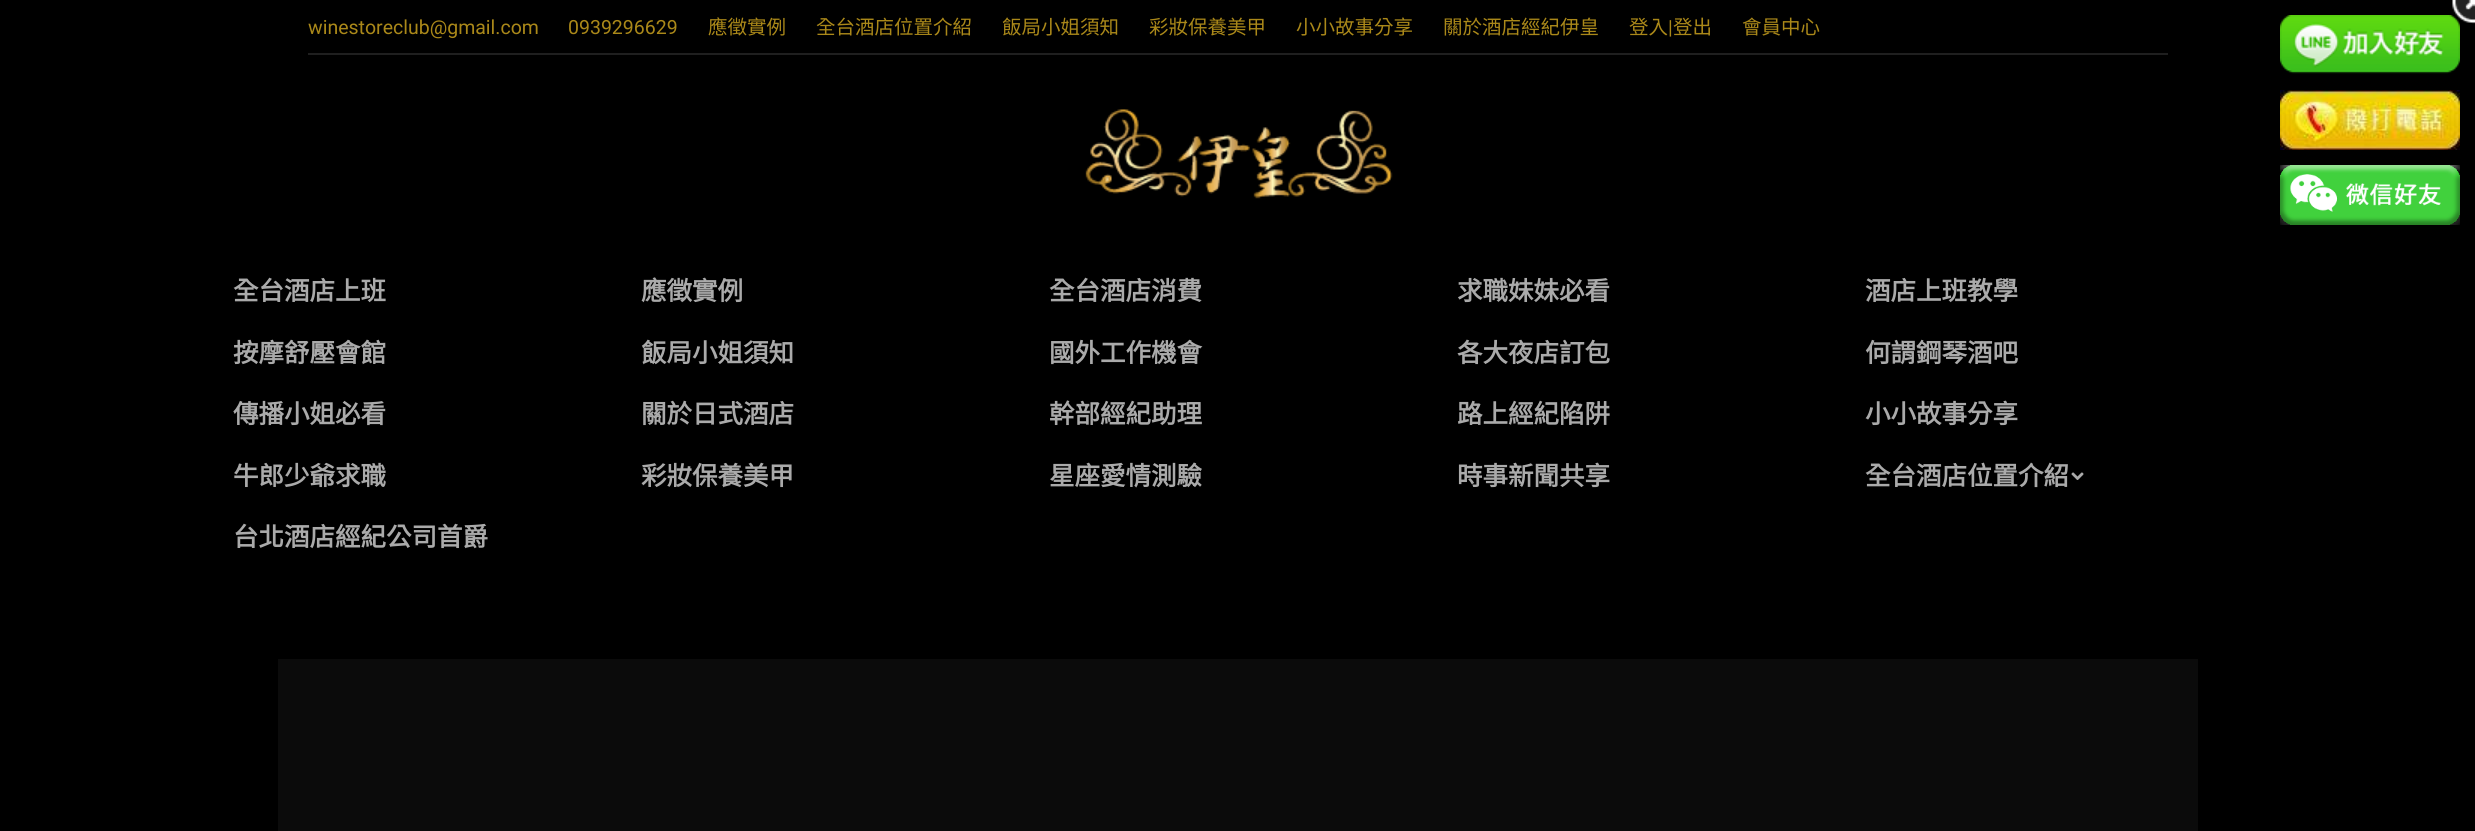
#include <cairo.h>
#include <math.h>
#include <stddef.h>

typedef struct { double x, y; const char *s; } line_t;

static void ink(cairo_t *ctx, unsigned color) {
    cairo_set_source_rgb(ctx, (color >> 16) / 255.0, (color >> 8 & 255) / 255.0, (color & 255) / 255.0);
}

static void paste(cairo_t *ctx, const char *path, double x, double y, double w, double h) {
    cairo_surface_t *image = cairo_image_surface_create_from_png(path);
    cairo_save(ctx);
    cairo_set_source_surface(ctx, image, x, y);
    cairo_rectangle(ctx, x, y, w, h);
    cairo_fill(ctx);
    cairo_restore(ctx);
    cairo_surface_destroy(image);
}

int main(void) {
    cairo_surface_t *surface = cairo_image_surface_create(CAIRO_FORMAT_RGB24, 2475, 831);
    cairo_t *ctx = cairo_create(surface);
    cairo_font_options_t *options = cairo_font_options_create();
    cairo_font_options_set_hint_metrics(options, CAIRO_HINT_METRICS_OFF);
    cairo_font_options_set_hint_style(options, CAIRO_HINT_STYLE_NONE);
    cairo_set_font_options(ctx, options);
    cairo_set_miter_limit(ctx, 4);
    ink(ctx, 0x000000);
    cairo_paint(ctx);
    cairo_select_font_face(ctx, "Roboto", CAIRO_FONT_SLANT_NORMAL, CAIRO_FONT_WEIGHT_NORMAL);
    cairo_set_font_size(ctx, 19.5);
    ink(ctx, 0xAA8819);
    cairo_move_to(ctx, 308, 34);
    cairo_show_text(ctx, "winestoreclub@gmail.com");
    cairo_move_to(ctx, 568, 34);
    cairo_show_text(ctx, "0939296629");
    cairo_select_font_face(ctx, "Noto Sans CJK TC", CAIRO_FONT_SLANT_NORMAL, CAIRO_FONT_WEIGHT_NORMAL);
    {
        static const line_t items[] = {
            {708, 34, "應徵實例"},
            {816, 34, "全台酒店位置介紹"},
            {1002, 34, "飯局小姐須知"},
            {1149, 34, "彩妝保養美甲"},
            {1296, 34, "小小故事分享"},
            {1443, 34, "關於酒店經紀伊皇"},
            {1629, 34, "登入"},
        };
        for (size_t i = 0; i < sizeof items / sizeof *items; i++) {
            cairo_move_to(ctx, items[i].x, items[i].y);
            cairo_show_text(ctx, items[i].s);
        }
    }
    cairo_select_font_face(ctx, "Roboto", CAIRO_FONT_SLANT_NORMAL, CAIRO_FONT_WEIGHT_NORMAL);
    cairo_move_to(ctx, 1668, 34);
    cairo_show_text(ctx, "|");
    cairo_select_font_face(ctx, "Noto Sans CJK TC", CAIRO_FONT_SLANT_NORMAL, CAIRO_FONT_WEIGHT_NORMAL);
    cairo_move_to(ctx, 1673, 34);
    cairo_show_text(ctx, "登出");
    cairo_move_to(ctx, 1742, 34);
    cairo_show_text(ctx, "會員中心");
    ink(ctx, 0x1F1F1F);
    cairo_rectangle(ctx, 308, 53, 1860, 2);
    cairo_fill(ctx);
    paste(ctx, "media/1.png", 1085, 109, 308, 90);
    cairo_select_font_face(ctx, "Noto Sans CJK TC", CAIRO_FONT_SLANT_NORMAL, CAIRO_FONT_WEIGHT_BOLD);
    cairo_set_font_size(ctx, 25.5);
    ink(ctx, 0xAAAAAA);
    {
        static const line_t items[] = {
            {233, 300, "全台酒店上班"},
            {641, 300, "應徵實例"},
            {1049, 300, "全台酒店消費"},
            {1457, 300, "求職妹妹必看"},
            {1865, 300, "酒店上班教學"},
            {233, 362, "按摩舒壓會館"},
            {641, 362, "飯局小姐須知"},
            {1049, 362, "國外工作機會"},
            {1457, 362, "各大夜店訂包"},
            {1865, 362, "何謂鋼琴酒吧"},
            {233, 423, "傳播小姐必看"},
            {641, 423, "關於日式酒店"},
            {1049, 423, "幹部經紀助理"},
            {1457, 423, "路上經紀陷阱"},
            {1865, 423, "小小故事分享"},
            {233, 485, "牛郎少爺求職"},
            {641, 485, "彩妝保養美甲"},
            {1049, 485, "星座愛情測驗"},
            {1457, 485, "時事新聞共享"},
            {1865, 485, "全台酒店位置介紹"},
        };
        for (size_t i = 0; i < sizeof items / sizeof *items; i++) {
            cairo_move_to(ctx, items[i].x, items[i].y);
            cairo_show_text(ctx, items[i].s);
        }
    }
    paste(ctx, "media/2.png", 2071, 472, 13, 8);
    cairo_move_to(ctx, 233, 546);
    cairo_show_text(ctx, "台北酒店經紀公司首爵");
    ink(ctx, 0x0B0B0B);
    cairo_rectangle(ctx, 278, 659, 1920, 172);
    cairo_fill(ctx);
    paste(ctx, "media/4.png", 2280, 15, 180, 59);
    paste(ctx, "media/3.png", 2452, 0, 23, 24);
    paste(ctx, "media/5.png", 2280, 90, 180, 60);
    paste(ctx, "media/6.png", 2280, 165, 180, 60);
    cairo_surface_write_to_png(surface, "image.png");
    cairo_font_options_destroy(options);
    cairo_destroy(ctx);
    cairo_surface_destroy(surface);
    return 0;
}
